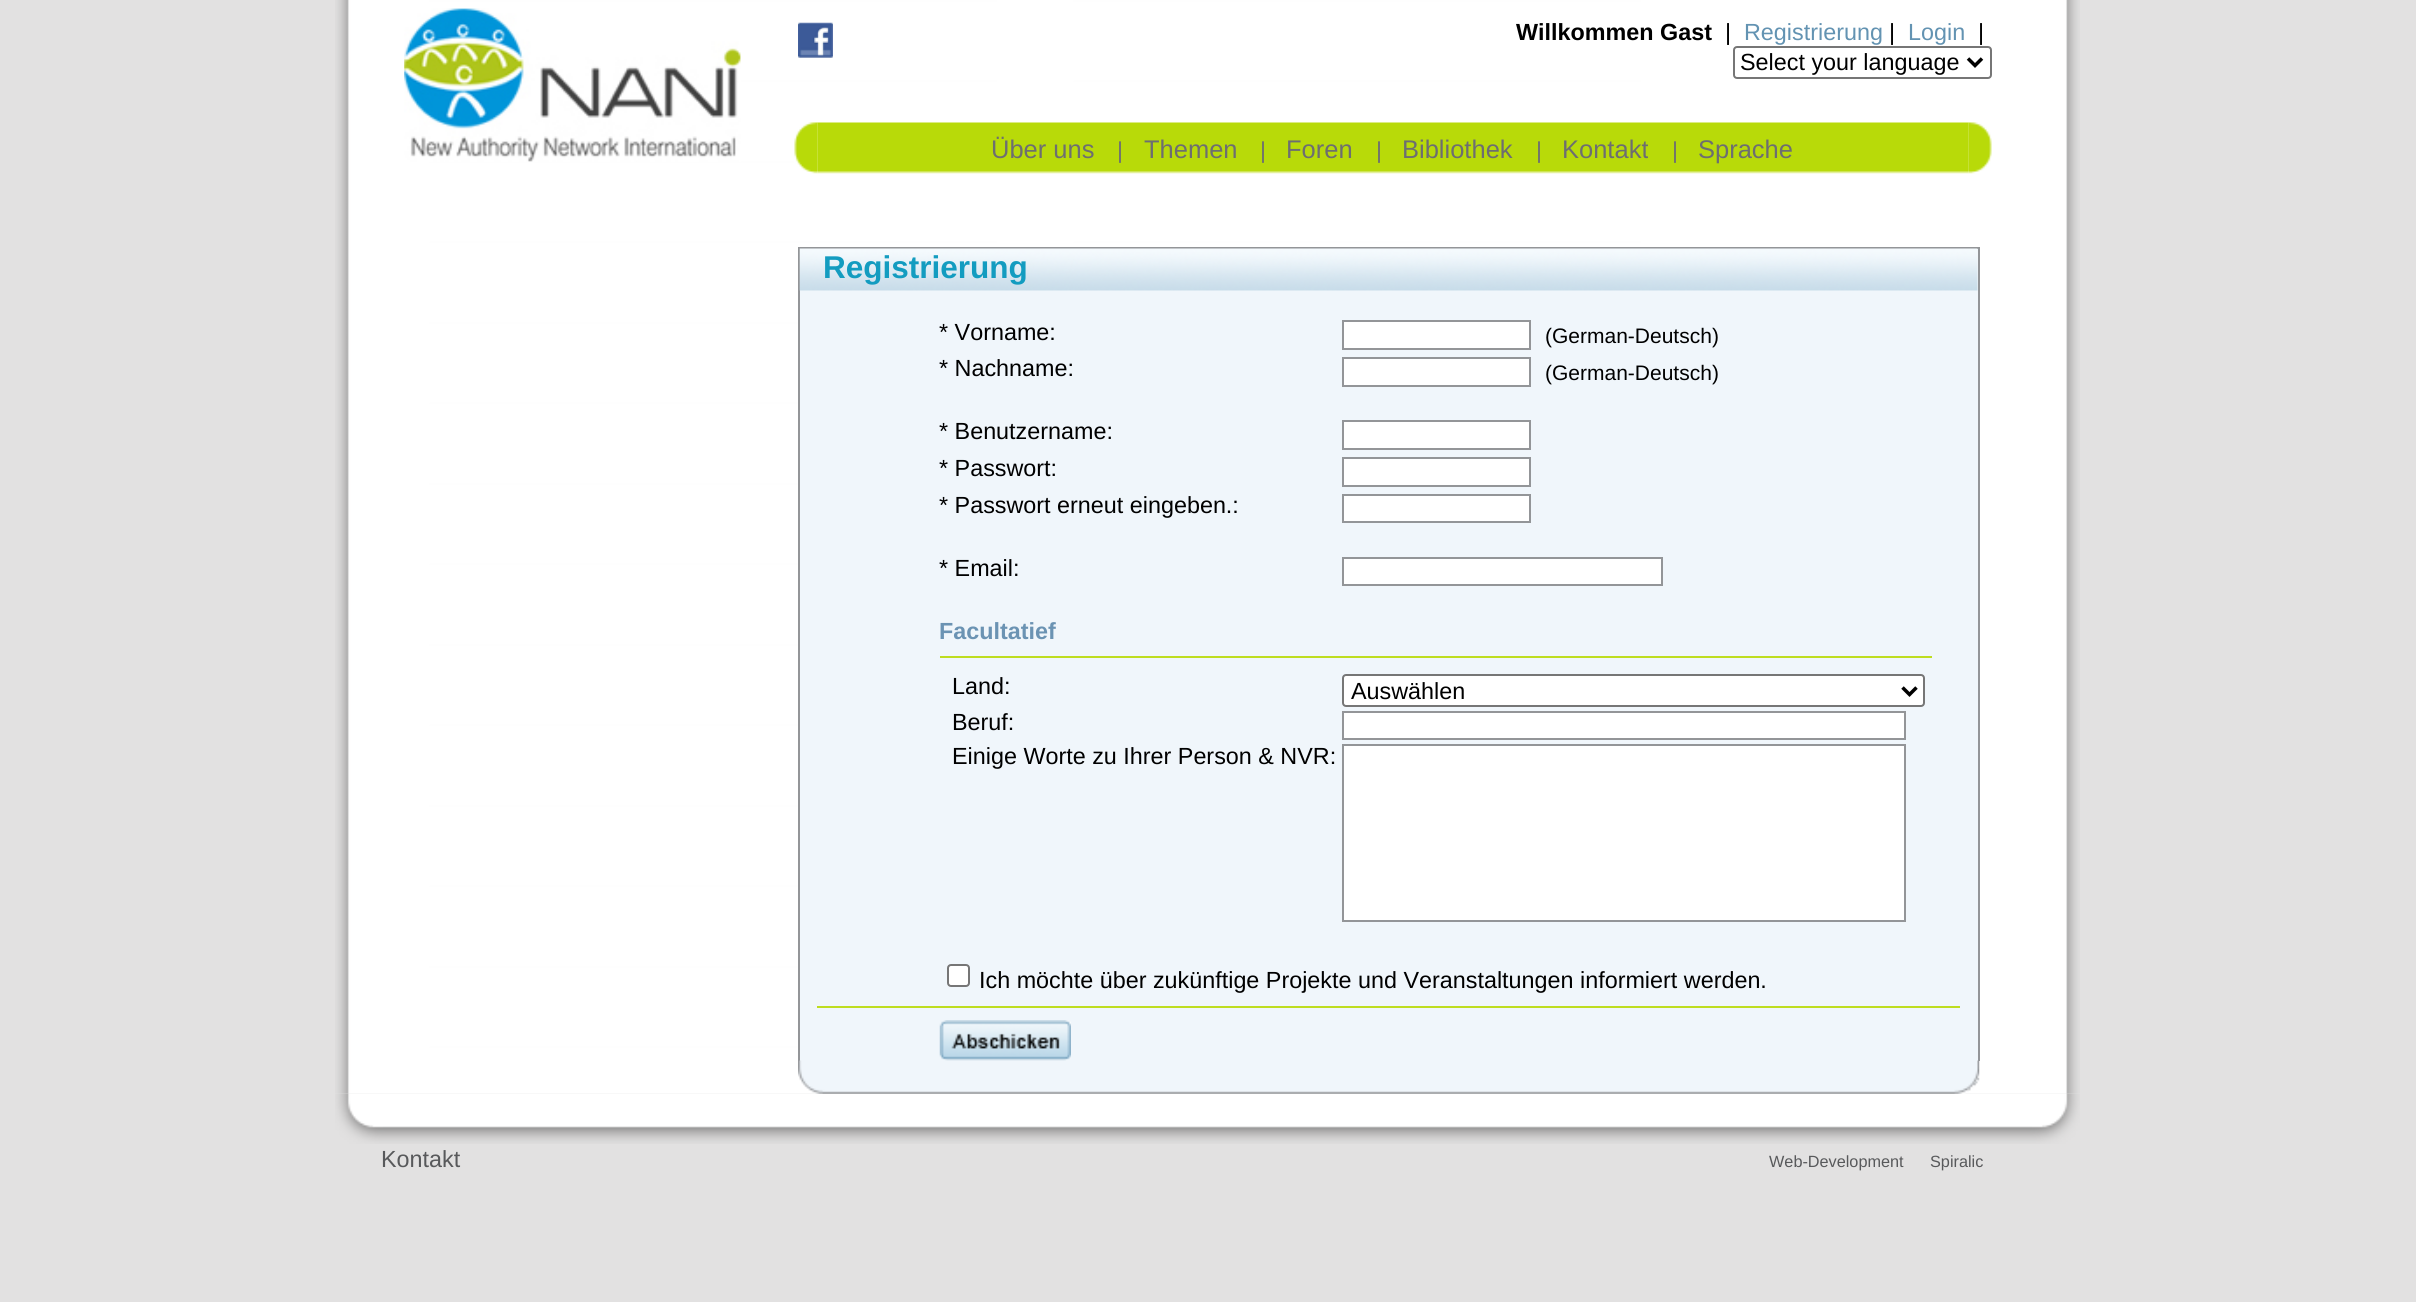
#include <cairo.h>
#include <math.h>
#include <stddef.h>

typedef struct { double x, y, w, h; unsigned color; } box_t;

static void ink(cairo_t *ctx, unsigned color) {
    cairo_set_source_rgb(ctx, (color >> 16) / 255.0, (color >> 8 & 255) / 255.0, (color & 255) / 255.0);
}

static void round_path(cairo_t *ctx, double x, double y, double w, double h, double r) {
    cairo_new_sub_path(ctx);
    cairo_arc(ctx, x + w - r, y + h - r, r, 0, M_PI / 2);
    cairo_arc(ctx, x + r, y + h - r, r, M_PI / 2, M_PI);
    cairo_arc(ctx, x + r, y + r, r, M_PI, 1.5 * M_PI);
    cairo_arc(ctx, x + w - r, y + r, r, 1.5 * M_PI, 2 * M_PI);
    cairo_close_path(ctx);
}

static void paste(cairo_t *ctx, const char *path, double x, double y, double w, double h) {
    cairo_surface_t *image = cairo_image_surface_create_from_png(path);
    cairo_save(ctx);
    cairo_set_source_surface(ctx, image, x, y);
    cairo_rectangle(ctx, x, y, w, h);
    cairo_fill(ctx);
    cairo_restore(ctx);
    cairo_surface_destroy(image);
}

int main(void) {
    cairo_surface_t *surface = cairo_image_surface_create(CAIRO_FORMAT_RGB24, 2416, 1302);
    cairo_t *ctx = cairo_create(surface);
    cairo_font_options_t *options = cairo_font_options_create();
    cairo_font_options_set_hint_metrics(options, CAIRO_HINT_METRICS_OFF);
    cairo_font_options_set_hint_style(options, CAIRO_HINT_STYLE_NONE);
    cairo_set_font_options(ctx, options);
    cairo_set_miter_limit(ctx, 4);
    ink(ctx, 0xE2E1E1);
    cairo_paint(ctx);
    paste(ctx, "media/1.png", 335, 0, 1745, 1094);
    paste(ctx, "media/2.png", 404, 8, 337, 154);
    paste(ctx, "media/3.png", 798, 22, 35, 36);
    cairo_select_font_face(ctx, "Liberation Sans", CAIRO_FONT_SLANT_NORMAL, CAIRO_FONT_WEIGHT_BOLD);
    cairo_set_font_size(ctx, 23.35);
    ink(ctx, 0x000000);
    cairo_move_to(ctx, 1516, 40);
    cairo_show_text(ctx, "Willkommen Gast");
    cairo_select_font_face(ctx, "Liberation Sans", CAIRO_FONT_SLANT_NORMAL, CAIRO_FONT_WEIGHT_NORMAL);
    cairo_move_to(ctx, 1725, 40);
    cairo_show_text(ctx, "|");
    ink(ctx, 0x6393B2);
    cairo_move_to(ctx, 1744, 40);
    cairo_show_text(ctx, "Registrierung");
    ink(ctx, 0x000000);
    cairo_move_to(ctx, 1889, 40);
    cairo_show_text(ctx, "|");
    ink(ctx, 0x6393B2);
    cairo_move_to(ctx, 1908, 40);
    cairo_show_text(ctx, "Login");
    ink(ctx, 0x000000);
    cairo_move_to(ctx, 1978, 40);
    cairo_show_text(ctx, "|");
    round_path(ctx, 1734, 47, 257, 31, 3);
    ink(ctx, 0x767676);
    cairo_stroke(ctx);
    cairo_new_path(ctx);
    cairo_move_to(ctx, 1968, 58.5);
    cairo_line_to(ctx, 1975, 65.5);
    cairo_line_to(ctx, 1982, 58.5);
    ink(ctx, 0x000000);
    cairo_set_line_width(ctx, 3.5);
    cairo_stroke(ctx);
    cairo_move_to(ctx, 1740, 70);
    cairo_show_text(ctx, "Select your language");
    paste(ctx, "media/4.png", 794, 122, 24, 52);
    paste(ctx, "media/5.png", 817, 122, 1152, 52);
    cairo_set_font_size(ctx, 25.5);
    ink(ctx, 0x6D6E71);
    cairo_move_to(ctx, 991, 158);
    cairo_show_text(ctx, "Über uns");
    cairo_set_font_size(ctx, 23);
    cairo_move_to(ctx, 1117, 158);
    cairo_show_text(ctx, "|");
    cairo_set_font_size(ctx, 25.5);
    cairo_move_to(ctx, 1144, 158);
    cairo_show_text(ctx, "Themen");
    cairo_set_font_size(ctx, 23);
    cairo_move_to(ctx, 1260, 158);
    cairo_show_text(ctx, "|");
    cairo_set_font_size(ctx, 25.5);
    cairo_move_to(ctx, 1286, 158);
    cairo_show_text(ctx, "Foren");
    cairo_set_font_size(ctx, 23);
    cairo_move_to(ctx, 1376, 158);
    cairo_show_text(ctx, "|");
    cairo_set_font_size(ctx, 25.5);
    cairo_move_to(ctx, 1402, 158);
    cairo_show_text(ctx, "Bibliothek");
    cairo_set_font_size(ctx, 23);
    cairo_move_to(ctx, 1536, 158);
    cairo_show_text(ctx, "|");
    cairo_set_font_size(ctx, 25.5);
    cairo_move_to(ctx, 1562, 158);
    cairo_show_text(ctx, "Kontakt");
    cairo_set_font_size(ctx, 23);
    cairo_move_to(ctx, 1672, 158);
    cairo_show_text(ctx, "|");
    cairo_set_font_size(ctx, 25.5);
    cairo_move_to(ctx, 1698, 158);
    cairo_show_text(ctx, "Sprache");
    paste(ctx, "media/6.png", 1968, 122, 24, 52);
    {
        static const box_t items[] = {
            {800, 249, 1178, 812, 0xF0F6FB},
            {798, 247, 1181, 2, 0x939598},
            {1978, 247, 2, 814, 0x939598},
            {798, 247, 2, 814, 0x939598},
        };
        for (size_t i = 0; i < sizeof items / sizeof *items; i++) {
            ink(ctx, items[i].color);
            cairo_rectangle(ctx, items[i].x, items[i].y, items[i].w, items[i].h);
            cairo_fill(ctx);
        }
    }
    paste(ctx, "media/7.png", 799, 248, 1179, 43);
    cairo_select_font_face(ctx, "Liberation Sans", CAIRO_FONT_SLANT_NORMAL, CAIRO_FONT_WEIGHT_BOLD);
    cairo_set_font_size(ctx, 31.5);
    ink(ctx, 0x139CC0);
    cairo_move_to(ctx, 823, 278);
    cairo_show_text(ctx, "Registrierung");
    cairo_select_font_face(ctx, "Liberation Sans", CAIRO_FONT_SLANT_NORMAL, CAIRO_FONT_WEIGHT_NORMAL);
    cairo_set_font_size(ctx, 23.35);
    ink(ctx, 0x000000);
    cairo_move_to(ctx, 939, 340);
    cairo_show_text(ctx, "* Vorname:");
    ink(ctx, 0xFFFFFF);
    cairo_rectangle(ctx, 1343, 321, 187, 28);
    cairo_fill_preserve(ctx);
    ink(ctx, 0x939598);
    cairo_set_line_width(ctx, 2);
    cairo_stroke(ctx);
    cairo_set_font_size(ctx, 21);
    ink(ctx, 0x000000);
    cairo_move_to(ctx, 1545, 343);
    cairo_show_text(ctx, "(German-Deutsch)");
    cairo_set_font_size(ctx, 23.35);
    cairo_move_to(ctx, 939, 376);
    cairo_show_text(ctx, "* Nachname:");
    ink(ctx, 0xFFFFFF);
    cairo_rectangle(ctx, 1343, 358, 187, 28);
    cairo_fill_preserve(ctx);
    ink(ctx, 0x939598);
    cairo_stroke(ctx);
    cairo_set_font_size(ctx, 21);
    ink(ctx, 0x000000);
    cairo_move_to(ctx, 1545, 380);
    cairo_show_text(ctx, "(German-Deutsch)");
    cairo_set_font_size(ctx, 23.35);
    cairo_move_to(ctx, 939, 439);
    cairo_show_text(ctx, "* Benutzername:");
    ink(ctx, 0xFFFFFF);
    cairo_rectangle(ctx, 1343, 421, 187, 28);
    cairo_fill_preserve(ctx);
    ink(ctx, 0x939598);
    cairo_stroke(ctx);
    ink(ctx, 0x000000);
    cairo_move_to(ctx, 939, 476);
    cairo_show_text(ctx, "* Passwort:");
    ink(ctx, 0xFFFFFF);
    cairo_rectangle(ctx, 1343, 458, 187, 28);
    cairo_fill_preserve(ctx);
    ink(ctx, 0x939598);
    cairo_stroke(ctx);
    ink(ctx, 0x000000);
    cairo_move_to(ctx, 939, 513);
    cairo_show_text(ctx, "* Passwort erneut eingeben.:");
    ink(ctx, 0xFFFFFF);
    cairo_rectangle(ctx, 1343, 495, 187, 27);
    cairo_fill_preserve(ctx);
    ink(ctx, 0x939598);
    cairo_stroke(ctx);
    ink(ctx, 0x000000);
    cairo_move_to(ctx, 939, 576);
    cairo_show_text(ctx, "* Email:");
    ink(ctx, 0xFFFFFF);
    cairo_rectangle(ctx, 1343, 558, 319, 27);
    cairo_fill_preserve(ctx);
    ink(ctx, 0x939598);
    cairo_stroke(ctx);
    cairo_select_font_face(ctx, "Liberation Sans", CAIRO_FONT_SLANT_NORMAL, CAIRO_FONT_WEIGHT_BOLD);
    ink(ctx, 0x6B93B3);
    cairo_move_to(ctx, 939, 639);
    cairo_show_text(ctx, "Facultatief");
    ink(ctx, 0xBEDD1F);
    cairo_rectangle(ctx, 940, 656, 992, 2);
    cairo_fill(ctx);
    cairo_select_font_face(ctx, "Liberation Sans", CAIRO_FONT_SLANT_NORMAL, CAIRO_FONT_WEIGHT_NORMAL);
    ink(ctx, 0x000000);
    cairo_move_to(ctx, 952, 694);
    cairo_show_text(ctx, "Land:");
    ink(ctx, 0xFFFFFF);
    round_path(ctx, 1343, 675, 581, 31, 3);
    cairo_fill_preserve(ctx);
    ink(ctx, 0x767676);
    cairo_stroke(ctx);
    cairo_new_path(ctx);
    cairo_move_to(ctx, 1902.5, 687.5);
    cairo_line_to(ctx, 1909.5, 694.5);
    cairo_line_to(ctx, 1916.5, 687.5);
    ink(ctx, 0x000000);
    cairo_set_line_width(ctx, 3.5);
    cairo_stroke(ctx);
    cairo_move_to(ctx, 1351, 699);
    cairo_show_text(ctx, "Auswählen");
    cairo_move_to(ctx, 952, 730);
    cairo_show_text(ctx, "Beruf:");
    ink(ctx, 0xFFFFFF);
    cairo_rectangle(ctx, 1343, 712, 562, 27);
    cairo_fill_preserve(ctx);
    ink(ctx, 0x939598);
    cairo_set_line_width(ctx, 2);
    cairo_stroke(ctx);
    ink(ctx, 0x000000);
    cairo_move_to(ctx, 952, 764);
    cairo_show_text(ctx, "Einige Worte zu Ihrer Person & NVR:");
    ink(ctx, 0xFFFFFF);
    cairo_rectangle(ctx, 1343, 745, 562, 176);
    cairo_fill_preserve(ctx);
    ink(ctx, 0x939598);
    cairo_stroke(ctx);
    ink(ctx, 0xFFFFFF);
    round_path(ctx, 948, 965, 21, 21, 3);
    cairo_fill_preserve(ctx);
    ink(ctx, 0x767676);
    cairo_stroke(ctx);
    ink(ctx, 0x000000);
    cairo_move_to(ctx, 979, 988);
    cairo_show_text(ctx, "Ich möchte über zukünftige Projekte und Veranstaltungen informiert werden.");
    ink(ctx, 0xBEDD1F);
    cairo_rectangle(ctx, 817, 1006, 1143, 2);
    cairo_fill(ctx);
    paste(ctx, "media/9.png", 798, 1060, 1182, 34);
    paste(ctx, "media/8.png", 939, 1020, 132, 41);
    paste(ctx, "media/10.png", 335, 1094, 1745, 50);
    ink(ctx, 0x58595B);
    cairo_move_to(ctx, 381, 1167);
    cairo_show_text(ctx, "Kontakt");
    cairo_set_font_size(ctx, 16.25);
    cairo_move_to(ctx, 1769, 1167);
    cairo_show_text(ctx, "Web-Development");
    cairo_move_to(ctx, 1930, 1167);
    cairo_show_text(ctx, "Spiralic");
    cairo_surface_write_to_png(surface, "image.png");
    cairo_font_options_destroy(options);
    cairo_destroy(ctx);
    cairo_surface_destroy(surface);
    return 0;
}
